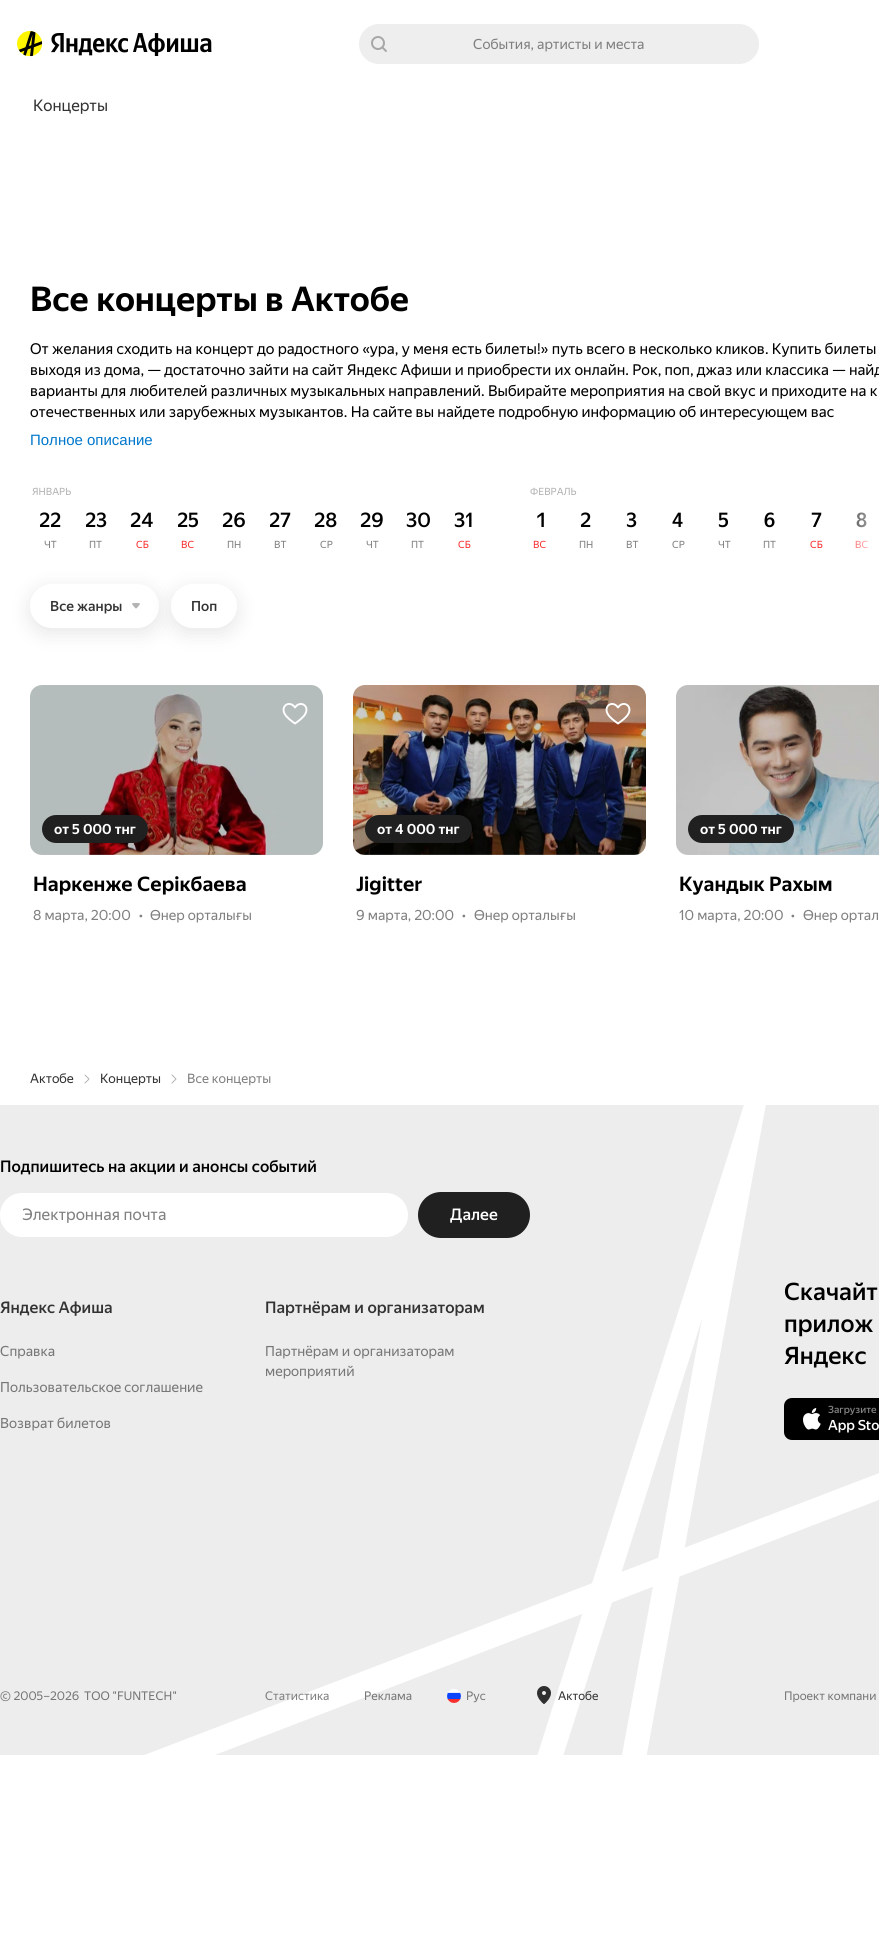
#include <cairo.h>
#include <math.h>
#include <stddef.h>

typedef struct { double x, y; const char *s; } line_t;

static void ink(cairo_t *ctx, unsigned color) {
    cairo_set_source_rgb(ctx, (color >> 16) / 255.0, (color >> 8 & 255) / 255.0, (color & 255) / 255.0);
}

static void write_spaced(cairo_t *ctx, double x, double y, const char *s, double letter, double word) {
    cairo_move_to(ctx, x, y);
    while (*s) {
        char ch[5] = {0};
        int n = 0;
        do ch[n++] = *s++; while ((*s & 0xC0) == 0x80);
        cairo_show_text(ctx, ch);
        cairo_rel_move_to(ctx, letter + word * (*ch == ' '), 0);
    }
}

static void round_path(cairo_t *ctx, double x, double y, double w, double h, double r) {
    cairo_new_sub_path(ctx);
    cairo_arc(ctx, x + w - r, y + h - r, r, 0, M_PI / 2);
    cairo_arc(ctx, x + r, y + h - r, r, M_PI / 2, M_PI);
    cairo_arc(ctx, x + r, y + r, r, M_PI, 1.5 * M_PI);
    cairo_arc(ctx, x + w - r, y + r, r, 1.5 * M_PI, 2 * M_PI);
    cairo_close_path(ctx);
}

static void blur_box(cairo_t *ctx, double x, double y, double w, double h, double r, double blur, double alpha) {
    cairo_push_group_with_content(ctx, CAIRO_CONTENT_ALPHA);
    cairo_set_operator(ctx, CAIRO_OPERATOR_SOURCE);
    for (int i = 15; i >= -15 && fmin(w, h) + blur * i / 3 > 0; i -= 2) {
        double e = blur * i / 6;
        cairo_set_source_rgba(ctx, 0, 0, 0, alpha * erfc((i - 1) / 8.5) / 2);
        round_path(ctx, x - e, y - e, w + 2 * e, h + 2 * e, fmax(0, fmin(r + e + blur * .6, fmin(w, h) / 2 + e)));
        cairo_fill(ctx);
    }
    cairo_pattern_t *soft = cairo_pop_group(ctx);
    cairo_mask(ctx, soft);
    cairo_pattern_destroy(soft);
}

static void paste(cairo_t *ctx, const char *path, double x, double y, double w, double h) {
    cairo_surface_t *image = cairo_image_surface_create_from_png(path);
    cairo_save(ctx);
    cairo_set_source_surface(ctx, image, x, y);
    cairo_rectangle(ctx, x, y, w, h);
    cairo_fill(ctx);
    cairo_restore(ctx);
    cairo_surface_destroy(image);
}

int main(void) {
    cairo_surface_t *surface = cairo_image_surface_create(CAIRO_FORMAT_RGB24, 879, 1955);
    cairo_t *ctx = cairo_create(surface);
    cairo_font_options_t *options = cairo_font_options_create();
    cairo_font_options_set_hint_metrics(options, CAIRO_HINT_METRICS_OFF);
    cairo_font_options_set_hint_style(options, CAIRO_HINT_STYLE_NONE);
    cairo_set_font_options(ctx, options);
    cairo_set_miter_limit(ctx, 4);
    cairo_pattern_t *gradient;
    ink(ctx, 0xFFFFFF);
    cairo_paint(ctx);
    paste(ctx, "media/1.png", 17, 31, 26, 26);
    paste(ctx, "media/2.png", 51, 33, 161, 23);
    paste(ctx, "media/3.png", 371, 36, 16, 16);
    cairo_set_source_rgba(ctx, 0, 0, 0, 0.07);
    round_path(ctx, 359, 24, 400, 40, 20);
    cairo_fill(ctx);
    cairo_select_font_face(ctx, "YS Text", CAIRO_FONT_SLANT_NORMAL, CAIRO_FONT_WEIGHT_NORMAL);
    cairo_set_font_size(ctx, 14);
    ink(ctx, 0x808080);
    cairo_move_to(ctx, 473, 49);
    cairo_show_text(ctx, "События, артисты и места");
    cairo_set_font_size(ctx, 16);
    ink(ctx, 0x333333);
    cairo_move_to(ctx, 33, 111);
    cairo_show_text(ctx, "Концерты");
    cairo_select_font_face(ctx, "YS Text", CAIRO_FONT_SLANT_NORMAL, CAIRO_FONT_WEIGHT_BOLD);
    cairo_set_font_size(ctx, 34);
    ink(ctx, 0x000000);
    write_spaced(ctx, 30, 311, "Все концерты в Актобе", -0.1, 0);
    cairo_select_font_face(ctx, "YS Text", CAIRO_FONT_SLANT_NORMAL, CAIRO_FONT_WEIGHT_NORMAL);
    cairo_set_font_size(ctx, 15);
    {
        static const line_t items[] = {
            {30, 354, "От желания сходить на концерт до радостного «ура, у меня есть билеты!» путь всего в несколько кликов. Купить билеты"},
            {30, 375, "выходя из дома, — достаточно зайти на сайт Яндекс Афиши и приобрести их онлайн. Рок, поп, джаз или классика — найд"},
            {30, 396, "варианты для любителей различных музыкальных направлений. Выбирайте мероприятия на свой вкус и приходите на к"},
            {30, 417, "отечественных или зарубежных музыкантов. На сайте вы найдете подробную информацию об интересующем вас"},
        };
        for (size_t i = 0; i < sizeof items / sizeof *items; i++) {
            cairo_move_to(ctx, items[i].x, items[i].y);
            cairo_show_text(ctx, items[i].s);
        }
    }
    cairo_select_font_face(ctx, "Liberation Sans", CAIRO_FONT_SLANT_NORMAL, CAIRO_FONT_WEIGHT_NORMAL);
    ink(ctx, 0x0077CC);
    cairo_move_to(ctx, 30, 445);
    cairo_show_text(ctx, "Полное описание");
    cairo_select_font_face(ctx, "YS Text", CAIRO_FONT_SLANT_NORMAL, CAIRO_FONT_WEIGHT_NORMAL);
    cairo_set_font_size(ctx, 10);
    ink(ctx, 0xB3B3B3);
    cairo_move_to(ctx, 32, 495);
    cairo_show_text(ctx, "ЯНВАРЬ");
    cairo_select_font_face(ctx, "YS Text Medium", CAIRO_FONT_SLANT_NORMAL, CAIRO_FONT_WEIGHT_NORMAL);
    cairo_set_font_size(ctx, 20);
    ink(ctx, 0x000000);
    cairo_move_to(ctx, 39, 527);
    cairo_show_text(ctx, "22");
    cairo_select_font_face(ctx, "YS Text", CAIRO_FONT_SLANT_NORMAL, CAIRO_FONT_WEIGHT_NORMAL);
    cairo_set_font_size(ctx, 10);
    ink(ctx, 0x808080);
    cairo_move_to(ctx, 44, 548);
    cairo_show_text(ctx, "ЧТ");
    cairo_select_font_face(ctx, "YS Text Medium", CAIRO_FONT_SLANT_NORMAL, CAIRO_FONT_WEIGHT_NORMAL);
    cairo_set_font_size(ctx, 20);
    ink(ctx, 0x000000);
    cairo_move_to(ctx, 85, 527);
    cairo_show_text(ctx, "23");
    cairo_select_font_face(ctx, "YS Text", CAIRO_FONT_SLANT_NORMAL, CAIRO_FONT_WEIGHT_NORMAL);
    cairo_set_font_size(ctx, 10);
    ink(ctx, 0x808080);
    cairo_move_to(ctx, 89, 548);
    cairo_show_text(ctx, "ПТ");
    cairo_select_font_face(ctx, "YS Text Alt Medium", CAIRO_FONT_SLANT_NORMAL, CAIRO_FONT_WEIGHT_NORMAL);
    cairo_set_font_size(ctx, 20);
    ink(ctx, 0x000000);
    cairo_move_to(ctx, 130, 527);
    cairo_show_text(ctx, "24");
    cairo_select_font_face(ctx, "YS Text", CAIRO_FONT_SLANT_NORMAL, CAIRO_FONT_WEIGHT_NORMAL);
    cairo_set_font_size(ctx, 10);
    ink(ctx, 0xF72F2F);
    cairo_move_to(ctx, 136, 548);
    cairo_show_text(ctx, "СБ");
    cairo_select_font_face(ctx, "YS Text Medium", CAIRO_FONT_SLANT_NORMAL, CAIRO_FONT_WEIGHT_NORMAL);
    cairo_set_font_size(ctx, 20);
    ink(ctx, 0x000000);
    cairo_move_to(ctx, 177, 527);
    cairo_show_text(ctx, "25");
    cairo_select_font_face(ctx, "YS Text", CAIRO_FONT_SLANT_NORMAL, CAIRO_FONT_WEIGHT_NORMAL);
    cairo_set_font_size(ctx, 10);
    ink(ctx, 0xF72F2F);
    cairo_move_to(ctx, 181, 548);
    cairo_show_text(ctx, "ВС");
    cairo_select_font_face(ctx, "YS Text Alt Medium", CAIRO_FONT_SLANT_NORMAL, CAIRO_FONT_WEIGHT_NORMAL);
    cairo_set_font_size(ctx, 20);
    ink(ctx, 0x000000);
    cairo_move_to(ctx, 222, 527);
    cairo_show_text(ctx, "26");
    cairo_select_font_face(ctx, "YS Text", CAIRO_FONT_SLANT_NORMAL, CAIRO_FONT_WEIGHT_NORMAL);
    cairo_set_font_size(ctx, 10);
    ink(ctx, 0x808080);
    cairo_move_to(ctx, 227, 548);
    cairo_show_text(ctx, "ПН");
    cairo_select_font_face(ctx, "YS Text Medium", CAIRO_FONT_SLANT_NORMAL, CAIRO_FONT_WEIGHT_NORMAL);
    cairo_set_font_size(ctx, 20);
    ink(ctx, 0x000000);
    cairo_move_to(ctx, 269, 527);
    cairo_show_text(ctx, "27");
    cairo_select_font_face(ctx, "YS Text", CAIRO_FONT_SLANT_NORMAL, CAIRO_FONT_WEIGHT_NORMAL);
    cairo_set_font_size(ctx, 10);
    ink(ctx, 0x808080);
    cairo_move_to(ctx, 274, 548);
    cairo_show_text(ctx, "ВТ");
    cairo_select_font_face(ctx, "YS Text Alt Medium", CAIRO_FONT_SLANT_NORMAL, CAIRO_FONT_WEIGHT_NORMAL);
    cairo_set_font_size(ctx, 20);
    ink(ctx, 0x000000);
    cairo_move_to(ctx, 314, 527);
    cairo_show_text(ctx, "28");
    cairo_select_font_face(ctx, "YS Text", CAIRO_FONT_SLANT_NORMAL, CAIRO_FONT_WEIGHT_NORMAL);
    cairo_set_font_size(ctx, 10);
    ink(ctx, 0x808080);
    cairo_move_to(ctx, 320, 548);
    cairo_show_text(ctx, "СР");
    cairo_select_font_face(ctx, "YS Text Alt Medium", CAIRO_FONT_SLANT_NORMAL, CAIRO_FONT_WEIGHT_NORMAL);
    cairo_set_font_size(ctx, 20);
    ink(ctx, 0x000000);
    cairo_move_to(ctx, 360, 527);
    cairo_show_text(ctx, "29");
    cairo_select_font_face(ctx, "YS Text", CAIRO_FONT_SLANT_NORMAL, CAIRO_FONT_WEIGHT_NORMAL);
    cairo_set_font_size(ctx, 10);
    ink(ctx, 0x808080);
    cairo_move_to(ctx, 366, 548);
    cairo_show_text(ctx, "ЧТ");
    cairo_select_font_face(ctx, "YS Text Alt Medium", CAIRO_FONT_SLANT_NORMAL, CAIRO_FONT_WEIGHT_NORMAL);
    cairo_set_font_size(ctx, 20);
    ink(ctx, 0x000000);
    cairo_move_to(ctx, 406, 527);
    cairo_show_text(ctx, "30");
    cairo_select_font_face(ctx, "YS Text", CAIRO_FONT_SLANT_NORMAL, CAIRO_FONT_WEIGHT_NORMAL);
    cairo_set_font_size(ctx, 10);
    ink(ctx, 0x808080);
    cairo_move_to(ctx, 411, 548);
    cairo_show_text(ctx, "ПТ");
    cairo_select_font_face(ctx, "YS Text Alt Medium", CAIRO_FONT_SLANT_NORMAL, CAIRO_FONT_WEIGHT_NORMAL);
    cairo_set_font_size(ctx, 20);
    ink(ctx, 0x000000);
    cairo_move_to(ctx, 454, 527);
    cairo_show_text(ctx, "31");
    cairo_select_font_face(ctx, "YS Text", CAIRO_FONT_SLANT_NORMAL, CAIRO_FONT_WEIGHT_NORMAL);
    cairo_set_font_size(ctx, 10);
    ink(ctx, 0xF72F2F);
    cairo_move_to(ctx, 458, 548);
    cairo_show_text(ctx, "СБ");
    ink(ctx, 0xB3B3B3);
    cairo_move_to(ctx, 530, 495);
    cairo_show_text(ctx, "ФЕВРАЛЬ");
    cairo_select_font_face(ctx, "YS Text Medium", CAIRO_FONT_SLANT_NORMAL, CAIRO_FONT_WEIGHT_NORMAL);
    cairo_set_font_size(ctx, 20);
    ink(ctx, 0x000000);
    cairo_move_to(ctx, 536, 527);
    cairo_show_text(ctx, "1");
    cairo_select_font_face(ctx, "YS Text", CAIRO_FONT_SLANT_NORMAL, CAIRO_FONT_WEIGHT_NORMAL);
    cairo_set_font_size(ctx, 10);
    ink(ctx, 0xF72F2F);
    cairo_move_to(ctx, 533, 548);
    cairo_show_text(ctx, "ВС");
    cairo_select_font_face(ctx, "YS Text Medium", CAIRO_FONT_SLANT_NORMAL, CAIRO_FONT_WEIGHT_NORMAL);
    cairo_set_font_size(ctx, 20);
    ink(ctx, 0x000000);
    cairo_move_to(ctx, 580, 527);
    cairo_show_text(ctx, "2");
    cairo_select_font_face(ctx, "YS Text", CAIRO_FONT_SLANT_NORMAL, CAIRO_FONT_WEIGHT_NORMAL);
    cairo_set_font_size(ctx, 10);
    ink(ctx, 0x808080);
    cairo_move_to(ctx, 579, 548);
    cairo_show_text(ctx, "ПН");
    cairo_select_font_face(ctx, "YS Text Medium", CAIRO_FONT_SLANT_NORMAL, CAIRO_FONT_WEIGHT_NORMAL);
    cairo_set_font_size(ctx, 20);
    ink(ctx, 0x000000);
    cairo_move_to(ctx, 626, 527);
    cairo_show_text(ctx, "3");
    cairo_select_font_face(ctx, "YS Text", CAIRO_FONT_SLANT_NORMAL, CAIRO_FONT_WEIGHT_NORMAL);
    cairo_set_font_size(ctx, 10);
    ink(ctx, 0x808080);
    cairo_move_to(ctx, 626, 548);
    cairo_show_text(ctx, "ВТ");
    cairo_select_font_face(ctx, "YS Text Medium", CAIRO_FONT_SLANT_NORMAL, CAIRO_FONT_WEIGHT_NORMAL);
    cairo_set_font_size(ctx, 20);
    ink(ctx, 0x000000);
    cairo_move_to(ctx, 672, 527);
    cairo_show_text(ctx, "4");
    cairo_select_font_face(ctx, "YS Text", CAIRO_FONT_SLANT_NORMAL, CAIRO_FONT_WEIGHT_NORMAL);
    cairo_set_font_size(ctx, 10);
    ink(ctx, 0x808080);
    cairo_move_to(ctx, 672, 548);
    cairo_show_text(ctx, "СР");
    cairo_select_font_face(ctx, "YS Text Medium", CAIRO_FONT_SLANT_NORMAL, CAIRO_FONT_WEIGHT_NORMAL);
    cairo_set_font_size(ctx, 20);
    ink(ctx, 0x000000);
    cairo_move_to(ctx, 718, 527);
    cairo_show_text(ctx, "5");
    cairo_select_font_face(ctx, "YS Text", CAIRO_FONT_SLANT_NORMAL, CAIRO_FONT_WEIGHT_NORMAL);
    cairo_set_font_size(ctx, 10);
    ink(ctx, 0x808080);
    cairo_move_to(ctx, 718, 548);
    cairo_show_text(ctx, "ЧТ");
    cairo_select_font_face(ctx, "YS Text Medium", CAIRO_FONT_SLANT_NORMAL, CAIRO_FONT_WEIGHT_NORMAL);
    cairo_set_font_size(ctx, 20);
    ink(ctx, 0x000000);
    cairo_move_to(ctx, 764, 527);
    cairo_show_text(ctx, "6");
    cairo_select_font_face(ctx, "YS Text", CAIRO_FONT_SLANT_NORMAL, CAIRO_FONT_WEIGHT_NORMAL);
    cairo_set_font_size(ctx, 10);
    ink(ctx, 0x808080);
    cairo_move_to(ctx, 763, 548);
    cairo_show_text(ctx, "ПТ");
    cairo_select_font_face(ctx, "YS Text Medium", CAIRO_FONT_SLANT_NORMAL, CAIRO_FONT_WEIGHT_NORMAL);
    cairo_set_font_size(ctx, 20);
    ink(ctx, 0x000000);
    cairo_move_to(ctx, 811, 527);
    cairo_show_text(ctx, "7");
    cairo_select_font_face(ctx, "YS Text", CAIRO_FONT_SLANT_NORMAL, CAIRO_FONT_WEIGHT_NORMAL);
    cairo_set_font_size(ctx, 10);
    ink(ctx, 0xF72F2F);
    cairo_move_to(ctx, 810, 548);
    cairo_show_text(ctx, "СБ");
    cairo_select_font_face(ctx, "YS Text Medium", CAIRO_FONT_SLANT_NORMAL, CAIRO_FONT_WEIGHT_NORMAL);
    cairo_set_font_size(ctx, 20);
    ink(ctx, 0x000000);
    cairo_move_to(ctx, 856, 527);
    cairo_show_text(ctx, "8");
    cairo_select_font_face(ctx, "YS Text", CAIRO_FONT_SLANT_NORMAL, CAIRO_FONT_WEIGHT_NORMAL);
    cairo_set_font_size(ctx, 10);
    ink(ctx, 0xF72F2F);
    cairo_move_to(ctx, 855, 548);
    cairo_show_text(ctx, "ВС");
    gradient = cairo_pattern_create_linear(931, 533, 831, 533);
    cairo_pattern_add_color_stop_rgba(gradient, 0, 1, 1, 1, 1);
    cairo_pattern_add_color_stop_rgba(gradient, 0.39, 1, 1, 1, 1);
    cairo_pattern_add_color_stop_rgba(gradient, 1, 1, 1, 1, 0);
    cairo_set_source(ctx, gradient);
    cairo_pattern_destroy(gradient);
    cairo_rectangle(ctx, 856, 512, 12, 37);
    cairo_fill(ctx);
    ink(ctx, 0xC1C1C1);
    blur_box(ctx, 30, 589, 129, 44, 22, 10, 0.4);
    ink(ctx, 0xFFFFFF);
    round_path(ctx, 30, 584, 129, 44, 22);
    cairo_fill(ctx);
    cairo_select_font_face(ctx, "YS Text Medium", CAIRO_FONT_SLANT_NORMAL, CAIRO_FONT_WEIGHT_NORMAL);
    cairo_set_font_size(ctx, 14);
    ink(ctx, 0x333333);
    cairo_move_to(ctx, 50, 611);
    cairo_show_text(ctx, "Все жанры");
    paste(ctx, "media/4.png", 132, 603, 8, 6);
    ink(ctx, 0xC1C1C1);
    blur_box(ctx, 171, 589, 66, 44, 22, 10, 0.4);
    ink(ctx, 0xFFFFFF);
    round_path(ctx, 171, 584, 66, 44, 22);
    cairo_fill(ctx);
    ink(ctx, 0x333333);
    cairo_move_to(ctx, 191, 611);
    cairo_show_text(ctx, "Поп");
    paste(ctx, "media/5.png", 30, 685, 293, 170);
    cairo_set_source_rgba(ctx, 0, 0, 0, 0.2);
    round_path(ctx, 30, 685, 293, 170, 12);
    cairo_fill(ctx);
    cairo_new_path(ctx);
    cairo_move_to(ctx, 295, 723.5);
    cairo_curve_to(ctx, 291.5, 721, 286.5, 717.5, 284.5, 713.5);
    cairo_curve_to(ctx, 280.5, 705.5, 290, 700, 295, 707.5);
    cairo_curve_to(ctx, 300, 700, 309.5, 705.5, 305.5, 713.5);
    cairo_curve_to(ctx, 303.5, 717.5, 298.5, 721, 295, 723.5);
    cairo_close_path(ctx);
    ink(ctx, 0xFFFFFF);
    cairo_set_line_width(ctx, 1.9);
    cairo_set_line_cap(ctx, CAIRO_LINE_CAP_SQUARE);
    cairo_set_line_join(ctx, CAIRO_LINE_JOIN_ROUND);
    cairo_stroke(ctx);
    ink(ctx, 0x202020);
    round_path(ctx, 42, 815, 106, 28, 14);
    cairo_fill(ctx);
    cairo_select_font_face(ctx, "YS Text Alt", CAIRO_FONT_SLANT_NORMAL, CAIRO_FONT_WEIGHT_BOLD);
    ink(ctx, 0xFFFFFF);
    cairo_move_to(ctx, 54, 834);
    cairo_show_text(ctx, "от 5 000 тнг");
    cairo_select_font_face(ctx, "YS Text", CAIRO_FONT_SLANT_NORMAL, CAIRO_FONT_WEIGHT_BOLD);
    cairo_set_font_size(ctx, 20);
    ink(ctx, 0x000000);
    cairo_move_to(ctx, 33, 891);
    cairo_show_text(ctx, "Наркенже Серікбаева");
    cairo_select_font_face(ctx, "YS Text Alt", CAIRO_FONT_SLANT_NORMAL, CAIRO_FONT_WEIGHT_NORMAL);
    cairo_set_font_size(ctx, 14);
    ink(ctx, 0x808080);
    cairo_move_to(ctx, 33, 920);
    cairo_show_text(ctx, "8 марта, 20:00");
    cairo_select_font_face(ctx, "YS Text", CAIRO_FONT_SLANT_NORMAL, CAIRO_FONT_WEIGHT_NORMAL);
    cairo_move_to(ctx, 139, 920);
    cairo_show_text(ctx, "•");
    cairo_move_to(ctx, 150, 920);
    cairo_show_text(ctx, "Өнер орталығы");
    paste(ctx, "media/6.png", 353, 685, 293, 170);
    cairo_set_source_rgba(ctx, 0, 0, 0, 0.2);
    round_path(ctx, 353, 685, 293, 170, 12);
    cairo_fill(ctx);
    cairo_new_path(ctx);
    cairo_move_to(ctx, 618, 723.5);
    cairo_curve_to(ctx, 614.5, 721, 609.5, 717.5, 607.5, 713.5);
    cairo_curve_to(ctx, 603.5, 705.5, 613, 700, 618, 707.5);
    cairo_curve_to(ctx, 623, 700, 632.5, 705.5, 628.5, 713.5);
    cairo_curve_to(ctx, 626.5, 717.5, 621.5, 721, 618, 723.5);
    cairo_close_path(ctx);
    ink(ctx, 0xFFFFFF);
    cairo_stroke(ctx);
    ink(ctx, 0x202020);
    round_path(ctx, 365, 815, 107, 28, 14);
    cairo_fill(ctx);
    cairo_select_font_face(ctx, "YS Text Alt", CAIRO_FONT_SLANT_NORMAL, CAIRO_FONT_WEIGHT_BOLD);
    ink(ctx, 0xFFFFFF);
    cairo_move_to(ctx, 377, 834);
    cairo_show_text(ctx, "от 4 000 тнг");
    cairo_select_font_face(ctx, "YS Text", CAIRO_FONT_SLANT_NORMAL, CAIRO_FONT_WEIGHT_BOLD);
    cairo_set_font_size(ctx, 20);
    ink(ctx, 0x000000);
    cairo_move_to(ctx, 356, 891);
    cairo_show_text(ctx, "Jigitter");
    cairo_select_font_face(ctx, "YS Text Alt", CAIRO_FONT_SLANT_NORMAL, CAIRO_FONT_WEIGHT_NORMAL);
    cairo_set_font_size(ctx, 14);
    ink(ctx, 0x808080);
    cairo_move_to(ctx, 356, 920);
    cairo_show_text(ctx, "9 марта, 20:00");
    cairo_select_font_face(ctx, "YS Text", CAIRO_FONT_SLANT_NORMAL, CAIRO_FONT_WEIGHT_NORMAL);
    cairo_move_to(ctx, 462, 920);
    cairo_show_text(ctx, "•");
    cairo_move_to(ctx, 474, 920);
    cairo_show_text(ctx, "Өнер орталығы");
    paste(ctx, "media/7.png", 676, 685, 203, 170);
    cairo_set_source_rgba(ctx, 0, 0, 0, 0.2);
    round_path(ctx, 676, 685, 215, 170, 12);
    cairo_fill(ctx);
    ink(ctx, 0x202020);
    round_path(ctx, 688, 815, 106, 28, 14);
    cairo_fill(ctx);
    cairo_select_font_face(ctx, "YS Text Alt", CAIRO_FONT_SLANT_NORMAL, CAIRO_FONT_WEIGHT_BOLD);
    ink(ctx, 0xFFFFFF);
    cairo_move_to(ctx, 700, 834);
    cairo_show_text(ctx, "от 5 000 тнг");
    cairo_select_font_face(ctx, "YS Text", CAIRO_FONT_SLANT_NORMAL, CAIRO_FONT_WEIGHT_BOLD);
    cairo_set_font_size(ctx, 20);
    ink(ctx, 0x000000);
    cairo_move_to(ctx, 679, 891);
    cairo_show_text(ctx, "Куандык Рахым");
    cairo_select_font_face(ctx, "YS Text Alt", CAIRO_FONT_SLANT_NORMAL, CAIRO_FONT_WEIGHT_NORMAL);
    cairo_set_font_size(ctx, 14);
    ink(ctx, 0x808080);
    cairo_move_to(ctx, 679, 920);
    cairo_show_text(ctx, "10 марта, 20:00");
    cairo_select_font_face(ctx, "YS Text", CAIRO_FONT_SLANT_NORMAL, CAIRO_FONT_WEIGHT_NORMAL);
    cairo_move_to(ctx, 791, 920);
    cairo_show_text(ctx, "•");
    cairo_move_to(ctx, 803, 920);
    cairo_show_text(ctx, "Өнер ортал");
    cairo_set_font_size(ctx, 13);
    ink(ctx, 0x333333);
    cairo_move_to(ctx, 30, 1083);
    cairo_show_text(ctx, "Актобе");
    cairo_new_path(ctx);
    cairo_move_to(ctx, 85, 1075);
    cairo_line_to(ctx, 89, 1079);
    cairo_line_to(ctx, 85, 1083);
    ink(ctx, 0xB3B3B3);
    cairo_set_line_width(ctx, 1);
    cairo_set_line_cap(ctx, CAIRO_LINE_CAP_ROUND);
    cairo_stroke(ctx);
    ink(ctx, 0x333333);
    cairo_move_to(ctx, 100, 1083);
    cairo_show_text(ctx, "Концерты");
    cairo_new_path(ctx);
    cairo_move_to(ctx, 172, 1075);
    cairo_line_to(ctx, 176, 1079);
    cairo_line_to(ctx, 172, 1083);
    ink(ctx, 0xB3B3B3);
    cairo_stroke(ctx);
    ink(ctx, 0x808080);
    cairo_move_to(ctx, 187, 1083);
    cairo_show_text(ctx, "Все концерты");
    ink(ctx, 0xEDEDED);
    cairo_rectangle(ctx, 0, 1105, 879, 650);
    cairo_fill(ctx);
    cairo_select_font_face(ctx, "YS Text Medium", CAIRO_FONT_SLANT_NORMAL, CAIRO_FONT_WEIGHT_NORMAL);
    cairo_set_font_size(ctx, 16);
    ink(ctx, 0x000000);
    cairo_move_to(ctx, 0, 1172);
    cairo_show_text(ctx, "Подпишитесь на акции и анонсы событий");
    ink(ctx, 0xFFFFFF);
    round_path(ctx, 1, 1194, 406, 42, 21);
    cairo_fill_preserve(ctx);
    cairo_set_line_width(ctx, 2);
    cairo_set_line_cap(ctx, CAIRO_LINE_CAP_BUTT);
    cairo_set_line_join(ctx, CAIRO_LINE_JOIN_MITER);
    cairo_stroke(ctx);
    cairo_select_font_face(ctx, "YS Text", CAIRO_FONT_SLANT_NORMAL, CAIRO_FONT_WEIGHT_NORMAL);
    ink(ctx, 0x808080);
    cairo_move_to(ctx, 22, 1220);
    cairo_show_text(ctx, "Электронная почта");
    ink(ctx, 0x202020);
    round_path(ctx, 418, 1192, 112, 46, 23);
    cairo_fill(ctx);
    cairo_select_font_face(ctx, "YS Text Medium", CAIRO_FONT_SLANT_NORMAL, CAIRO_FONT_WEIGHT_NORMAL);
    ink(ctx, 0xFFFFFF);
    cairo_move_to(ctx, 450, 1220);
    cairo_show_text(ctx, "Далее");
    ink(ctx, 0x333333);
    cairo_move_to(ctx, 0, 1313);
    cairo_show_text(ctx, "Яндекс Афиша");
    cairo_select_font_face(ctx, "YS Text", CAIRO_FONT_SLANT_NORMAL, CAIRO_FONT_WEIGHT_NORMAL);
    cairo_set_font_size(ctx, 14);
    ink(ctx, 0x777777);
    {
        static const line_t items[] = {
            {0, 1356, "Справка"},
            {0, 1392, "Пользовательское соглашение"},
            {0, 1428, "Возврат билетов"},
        };
        for (size_t i = 0; i < sizeof items / sizeof *items; i++) {
            cairo_move_to(ctx, items[i].x, items[i].y);
            cairo_show_text(ctx, items[i].s);
        }
    }
    cairo_select_font_face(ctx, "YS Text Medium", CAIRO_FONT_SLANT_NORMAL, CAIRO_FONT_WEIGHT_NORMAL);
    cairo_set_font_size(ctx, 16);
    ink(ctx, 0x333333);
    cairo_move_to(ctx, 265, 1313);
    cairo_show_text(ctx, "Партнёрам и организаторам");
    cairo_select_font_face(ctx, "YS Text", CAIRO_FONT_SLANT_NORMAL, CAIRO_FONT_WEIGHT_NORMAL);
    cairo_set_font_size(ctx, 14);
    ink(ctx, 0x777777);
    cairo_move_to(ctx, 265, 1356);
    cairo_show_text(ctx, "Партнёрам и организаторам");
    cairo_move_to(ctx, 265, 1376);
    cairo_show_text(ctx, "мероприятий");
    cairo_select_font_face(ctx, "YS Text Alt", CAIRO_FONT_SLANT_NORMAL, CAIRO_FONT_WEIGHT_NORMAL);
    cairo_set_font_size(ctx, 12);
    cairo_move_to(ctx, 0, 1700);
    cairo_show_text(ctx, "© 2005–2026");
    cairo_save(ctx);
    cairo_rectangle(ctx, 100, 1105, 779, 650);
    cairo_clip(ctx);
    ink(ctx, 0xFFFFFF);
    cairo_set_fill_rule(ctx, CAIRO_FILL_RULE_EVEN_ODD);
    cairo_new_path(ctx);
    cairo_move_to(ctx, 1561, 1238);
    cairo_line_to(ctx, 108, 1796);
    cairo_line_to(ctx, 100, 1772);
    cairo_line_to(ctx, 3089, 625);
    cairo_line_to(ctx, 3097, 649);
    cairo_close_path(ctx);
    cairo_fill(ctx);
    cairo_restore(ctx);
    cairo_select_font_face(ctx, "YS Text", CAIRO_FONT_SLANT_NORMAL, CAIRO_FONT_WEIGHT_NORMAL);
    cairo_move_to(ctx, 84, 1700);
    cairo_show_text(ctx, "ТОО \"FUNTECH\"");
    ink(ctx, 0x808080);
    cairo_move_to(ctx, 265, 1700);
    cairo_show_text(ctx, "Статистика");
    ink(ctx, 0x777777);
    cairo_move_to(ctx, 364, 1700);
    cairo_show_text(ctx, "Реклама");
    paste(ctx, "media/8.png", 447, 1689, 14, 14);
    cairo_move_to(ctx, 466, 1700);
    cairo_show_text(ctx, "Рус");
    cairo_save(ctx);
    cairo_rectangle(ctx, 519, 1105, 247, 650);
    cairo_clip(ctx);
    ink(ctx, 0xFFFFFF);
    cairo_set_fill_rule(ctx, CAIRO_FILL_RULE_EVEN_ODD);
    cairo_new_path(ctx);
    cairo_move_to(ctx, 600, 1875);
    cairo_line_to(ctx, 735, 1139);
    cairo_line_to(ctx, 744, 1104);
    cairo_line_to(ctx, 766, 1104);
    cairo_line_to(ctx, 624, 1879);
    cairo_close_path(ctx);
    cairo_fill(ctx);
    cairo_new_path(ctx);
    cairo_move_to(ctx, 493, 1895);
    cairo_line_to(ctx, 743, 1108);
    cairo_line_to(ctx, 764, 1108);
    cairo_line_to(ctx, 757, 1146);
    cairo_line_to(ctx, 517, 1901);
    cairo_close_path(ctx);
    cairo_fill(ctx);
    cairo_restore(ctx);
    paste(ctx, "media/9.png", 537, 1686, 14, 18);
    ink(ctx, 0x333333);
    cairo_move_to(ctx, 558, 1700);
    cairo_show_text(ctx, "Актобе");
    cairo_select_font_face(ctx, "YS Text Medium", CAIRO_FONT_SLANT_NORMAL, CAIRO_FONT_WEIGHT_NORMAL);
    cairo_set_font_size(ctx, 24);
    ink(ctx, 0x000000);
    {
        static const line_t items[] = {
            {784, 1300, "Скачайт"},
            {784, 1332, "прилож"},
            {784, 1364, "Яндекс"},
        };
        for (size_t i = 0; i < sizeof items / sizeof *items; i++) {
            cairo_move_to(ctx, items[i].x, items[i].y);
            cairo_show_text(ctx, items[i].s);
        }
    }
    cairo_new_path(ctx);
    cairo_move_to(ctx, 792, 1398);
    cairo_line_to(ctx, 879, 1398);
    cairo_line_to(ctx, 879, 1440);
    cairo_line_to(ctx, 792, 1440);
    cairo_curve_to(ctx, 787.5, 1440, 784, 1436.5, 784, 1432);
    cairo_line_to(ctx, 784, 1406);
    cairo_curve_to(ctx, 784, 1401.5, 787.5, 1398, 792, 1398);
    cairo_close_path(ctx);
    cairo_fill(ctx);
    paste(ctx, "media/10.png", 803, 1408, 18, 22);
    cairo_set_font_size(ctx, 10);
    ink(ctx, 0x808080);
    cairo_move_to(ctx, 828, 1413);
    cairo_show_text(ctx, "Загрузите");
    cairo_set_font_size(ctx, 14);
    ink(ctx, 0xFFFFFF);
    write_spaced(ctx, 828, 1430, "App Sto", -0.1, 0);
    cairo_select_font_face(ctx, "YS Text", CAIRO_FONT_SLANT_NORMAL, CAIRO_FONT_WEIGHT_NORMAL);
    cairo_set_font_size(ctx, 12);
    ink(ctx, 0x777777);
    cairo_move_to(ctx, 784, 1700);
    cairo_show_text(ctx, "Проект компани");
    cairo_surface_write_to_png(surface, "image.png");
    cairo_font_options_destroy(options);
    cairo_destroy(ctx);
    cairo_surface_destroy(surface);
    return 0;
}
